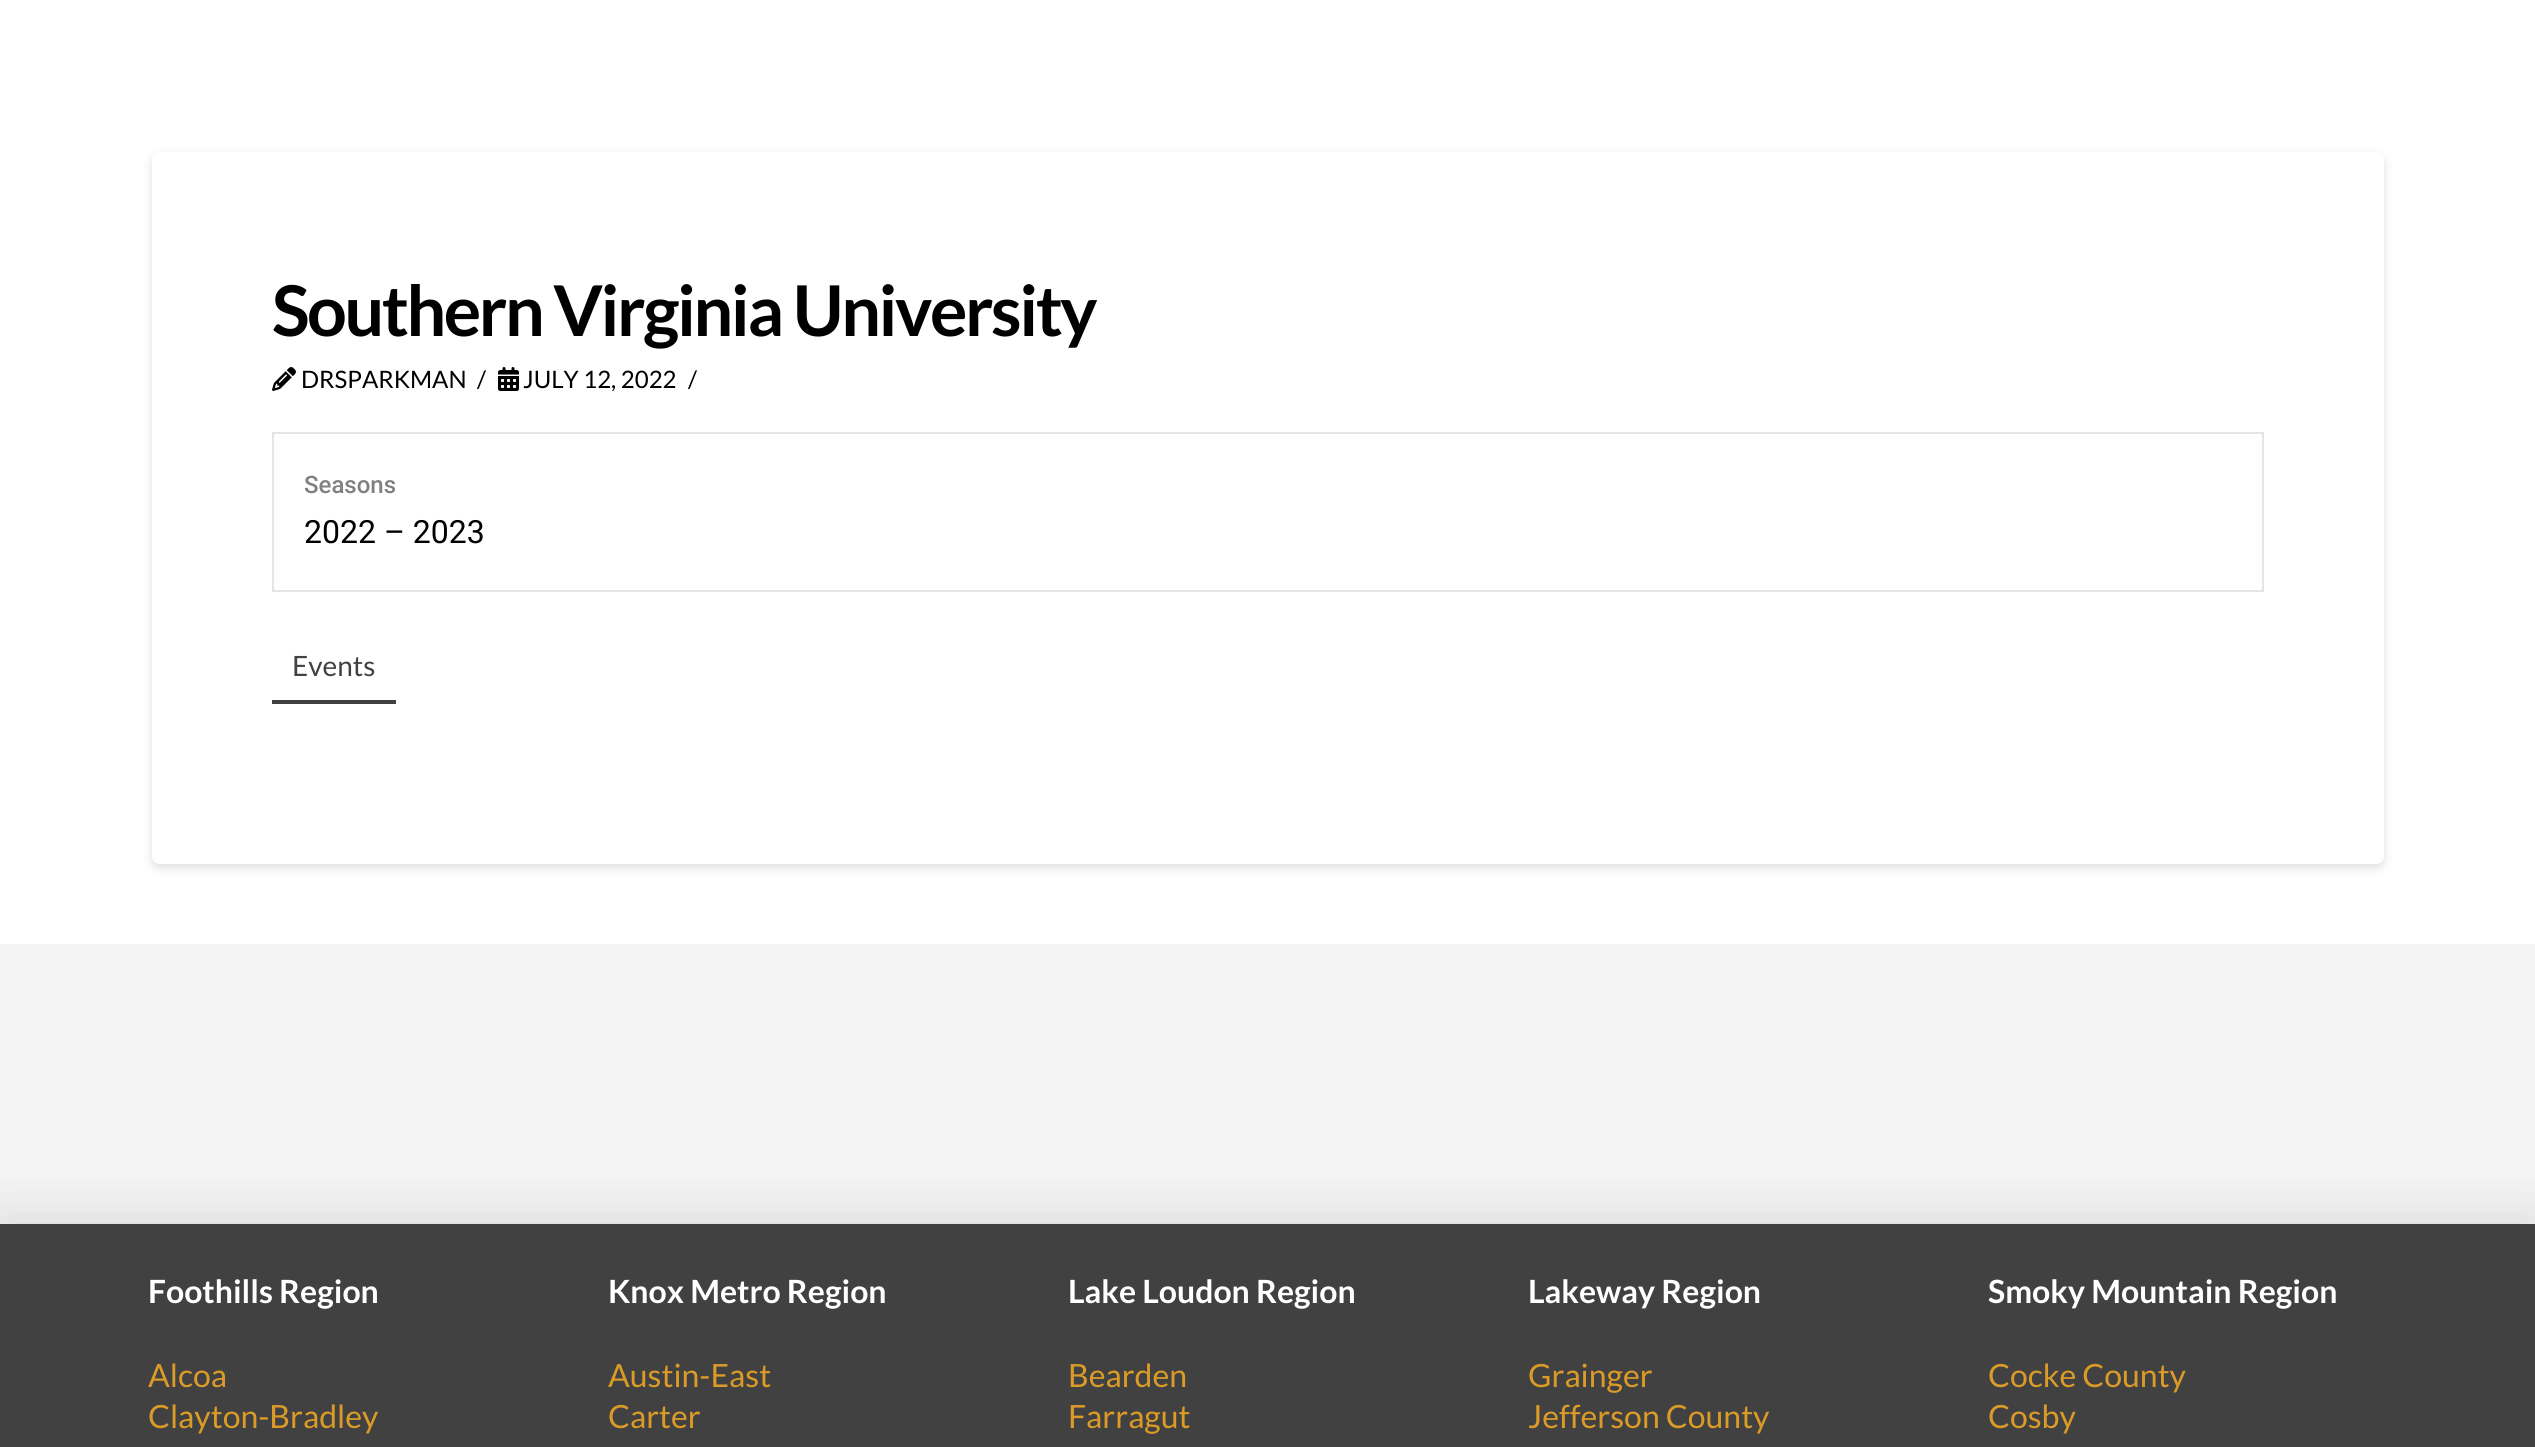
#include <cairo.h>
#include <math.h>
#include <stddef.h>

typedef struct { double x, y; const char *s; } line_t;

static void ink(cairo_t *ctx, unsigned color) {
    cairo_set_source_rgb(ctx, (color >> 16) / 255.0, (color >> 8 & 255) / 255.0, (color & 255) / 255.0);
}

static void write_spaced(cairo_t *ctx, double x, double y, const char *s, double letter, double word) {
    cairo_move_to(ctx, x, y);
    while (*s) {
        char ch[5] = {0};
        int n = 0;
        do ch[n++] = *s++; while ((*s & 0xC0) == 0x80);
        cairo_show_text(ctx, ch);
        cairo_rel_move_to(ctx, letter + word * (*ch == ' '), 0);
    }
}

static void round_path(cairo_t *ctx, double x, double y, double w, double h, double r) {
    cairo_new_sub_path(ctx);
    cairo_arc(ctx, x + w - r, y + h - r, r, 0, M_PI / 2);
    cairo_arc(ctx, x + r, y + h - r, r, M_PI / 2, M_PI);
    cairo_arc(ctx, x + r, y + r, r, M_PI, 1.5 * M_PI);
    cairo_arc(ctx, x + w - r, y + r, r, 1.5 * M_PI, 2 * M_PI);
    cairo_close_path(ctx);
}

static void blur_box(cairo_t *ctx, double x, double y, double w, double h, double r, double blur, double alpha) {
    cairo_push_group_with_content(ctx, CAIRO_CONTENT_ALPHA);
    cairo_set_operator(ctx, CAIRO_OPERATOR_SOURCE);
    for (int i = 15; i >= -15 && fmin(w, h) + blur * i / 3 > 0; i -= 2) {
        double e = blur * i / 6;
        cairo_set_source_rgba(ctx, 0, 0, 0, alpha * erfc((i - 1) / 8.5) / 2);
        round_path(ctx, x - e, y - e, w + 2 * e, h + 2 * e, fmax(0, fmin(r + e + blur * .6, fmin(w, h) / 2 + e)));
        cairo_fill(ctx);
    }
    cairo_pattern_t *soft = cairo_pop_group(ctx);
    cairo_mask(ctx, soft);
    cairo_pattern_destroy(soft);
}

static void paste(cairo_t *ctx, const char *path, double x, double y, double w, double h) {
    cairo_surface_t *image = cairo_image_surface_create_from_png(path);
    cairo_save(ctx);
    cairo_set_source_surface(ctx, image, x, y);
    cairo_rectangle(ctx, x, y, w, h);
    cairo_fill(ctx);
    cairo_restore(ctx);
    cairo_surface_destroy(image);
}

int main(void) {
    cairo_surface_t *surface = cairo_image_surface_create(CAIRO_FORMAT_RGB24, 2535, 1447);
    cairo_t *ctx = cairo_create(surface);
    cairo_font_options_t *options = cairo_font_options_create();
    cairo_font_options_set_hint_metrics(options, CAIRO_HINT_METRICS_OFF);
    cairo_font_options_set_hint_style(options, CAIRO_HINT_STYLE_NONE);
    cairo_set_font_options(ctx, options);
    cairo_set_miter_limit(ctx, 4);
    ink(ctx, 0xFFFFFF);
    cairo_paint(ctx);
    ink(ctx, 0x000000);
    blur_box(ctx, 152, 156, 2232, 712, 8, 5, 0.13);
    ink(ctx, 0xFFFFFF);
    round_path(ctx, 152, 152, 2232, 712, 8);
    cairo_fill(ctx);
    cairo_select_font_face(ctx, "Lato", CAIRO_FONT_SLANT_NORMAL, CAIRO_FONT_WEIGHT_BOLD);
    cairo_set_font_size(ctx, 70);
    ink(ctx, 0x000000);
    write_spaced(ctx, 272, 336, "Southern Virginia University", -2.45, 0);
    paste(ctx, "media/1.png", 272, 367, 24, 24);
    cairo_select_font_face(ctx, "Lato", CAIRO_FONT_SLANT_NORMAL, CAIRO_FONT_WEIGHT_NORMAL);
    cairo_set_font_size(ctx, 24);
    cairo_move_to(ctx, 301, 388);
    cairo_show_text(ctx, "DRSPARKMAN");
    cairo_move_to(ctx, 477, 388);
    cairo_show_text(ctx, "/");
    paste(ctx, "media/2.png", 498, 367, 21, 24);
    cairo_move_to(ctx, 523, 388);
    cairo_show_text(ctx, "JULY 12, 2022");
    cairo_move_to(ctx, 688, 388);
    cairo_show_text(ctx, "/");
    cairo_rectangle(ctx, 273, 433, 1990, 158);
    ink(ctx, 0xE5E5E5);
    cairo_stroke(ctx);
    cairo_select_font_face(ctx, "Roboto Medium", CAIRO_FONT_SLANT_NORMAL, CAIRO_FONT_WEIGHT_NORMAL);
    ink(ctx, 0x808080);
    cairo_move_to(ctx, 304, 493);
    cairo_show_text(ctx, "Seasons");
    cairo_select_font_face(ctx, "Roboto", CAIRO_FONT_SLANT_NORMAL, CAIRO_FONT_WEIGHT_NORMAL);
    cairo_set_font_size(ctx, 32);
    ink(ctx, 0x000000);
    cairo_move_to(ctx, 304, 543);
    cairo_show_text(ctx, "2022 – 2023");
    ink(ctx, 0x414141);
    cairo_rectangle(ctx, 272, 700, 124, 4);
    cairo_fill(ctx);
    cairo_select_font_face(ctx, "Lato", CAIRO_FONT_SLANT_NORMAL, CAIRO_FONT_WEIGHT_NORMAL);
    cairo_set_font_size(ctx, 28);
    cairo_move_to(ctx, 292, 676);
    cairo_show_text(ctx, "Events");
    ink(ctx, 0xF4F4F4);
    cairo_rectangle(ctx, 0, 944, 2535, 280);
    cairo_fill(ctx);
    ink(ctx, 0x000000);
    blur_box(ctx, 0, 1228, 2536, 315, 0, 32, 0.15);
    ink(ctx, 0x414141);
    cairo_rectangle(ctx, 0, 1224, 2535, 223);
    cairo_fill(ctx);
    cairo_select_font_face(ctx, "Lato", CAIRO_FONT_SLANT_NORMAL, CAIRO_FONT_WEIGHT_BOLD);
    cairo_set_font_size(ctx, 32);
    ink(ctx, 0xFFFFFF);
    {
        static const line_t items[] = {
            {148, 1303, "Foothills Region"},
            {608, 1303, "Knox Metro Region"},
            {1068, 1303, "Lake Loudon Region"},
            {1528, 1303, "Lakeway Region"},
            {1988, 1303, "Smoky Mountain Region"},
        };
        for (size_t i = 0; i < sizeof items / sizeof *items; i++) {
            cairo_move_to(ctx, items[i].x, items[i].y);
            cairo_show_text(ctx, items[i].s);
        }
    }
    cairo_select_font_face(ctx, "Lato", CAIRO_FONT_SLANT_NORMAL, CAIRO_FONT_WEIGHT_NORMAL);
    ink(ctx, 0xDB9B26);
    {
        static const line_t items[] = {
            {148, 1387, "Alcoa"},
            {148, 1428, "Clayton-Bradley"},
            {608, 1387, "Austin-East"},
            {1068, 1387, "Bearden"},
            {1528, 1387, "Grainger"},
            {1988, 1387, "Cocke County"},
            {608, 1428, "Carter"},
            {1068, 1428, "Farragut"},
            {1528, 1428, "Jefferson County"},
            {1988, 1428, "Cosby"},
        };
        for (size_t i = 0; i < sizeof items / sizeof *items; i++) {
            cairo_move_to(ctx, items[i].x, items[i].y);
            cairo_show_text(ctx, items[i].s);
        }
    }
    cairo_surface_write_to_png(surface, "image.png");
    cairo_font_options_destroy(options);
    cairo_destroy(ctx);
    cairo_surface_destroy(surface);
    return 0;
}
